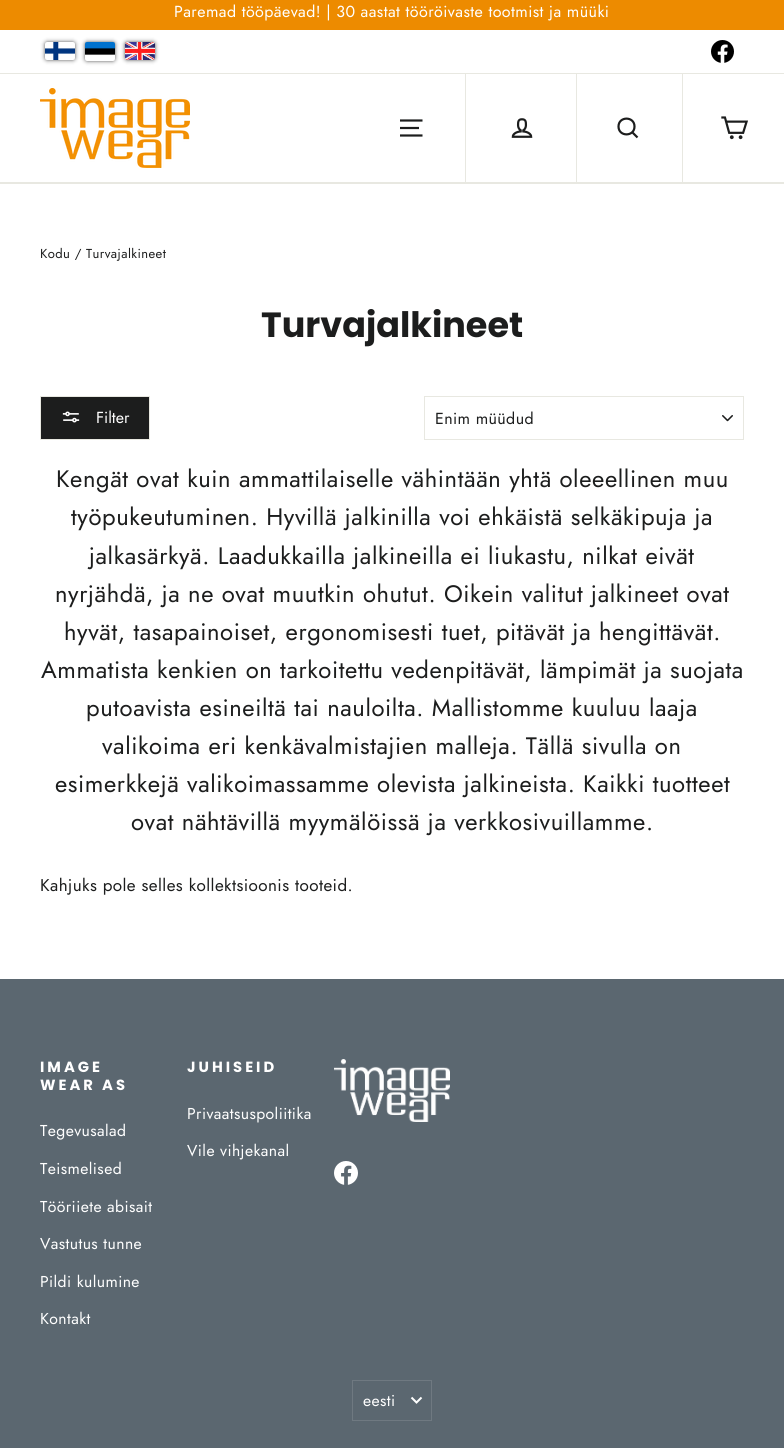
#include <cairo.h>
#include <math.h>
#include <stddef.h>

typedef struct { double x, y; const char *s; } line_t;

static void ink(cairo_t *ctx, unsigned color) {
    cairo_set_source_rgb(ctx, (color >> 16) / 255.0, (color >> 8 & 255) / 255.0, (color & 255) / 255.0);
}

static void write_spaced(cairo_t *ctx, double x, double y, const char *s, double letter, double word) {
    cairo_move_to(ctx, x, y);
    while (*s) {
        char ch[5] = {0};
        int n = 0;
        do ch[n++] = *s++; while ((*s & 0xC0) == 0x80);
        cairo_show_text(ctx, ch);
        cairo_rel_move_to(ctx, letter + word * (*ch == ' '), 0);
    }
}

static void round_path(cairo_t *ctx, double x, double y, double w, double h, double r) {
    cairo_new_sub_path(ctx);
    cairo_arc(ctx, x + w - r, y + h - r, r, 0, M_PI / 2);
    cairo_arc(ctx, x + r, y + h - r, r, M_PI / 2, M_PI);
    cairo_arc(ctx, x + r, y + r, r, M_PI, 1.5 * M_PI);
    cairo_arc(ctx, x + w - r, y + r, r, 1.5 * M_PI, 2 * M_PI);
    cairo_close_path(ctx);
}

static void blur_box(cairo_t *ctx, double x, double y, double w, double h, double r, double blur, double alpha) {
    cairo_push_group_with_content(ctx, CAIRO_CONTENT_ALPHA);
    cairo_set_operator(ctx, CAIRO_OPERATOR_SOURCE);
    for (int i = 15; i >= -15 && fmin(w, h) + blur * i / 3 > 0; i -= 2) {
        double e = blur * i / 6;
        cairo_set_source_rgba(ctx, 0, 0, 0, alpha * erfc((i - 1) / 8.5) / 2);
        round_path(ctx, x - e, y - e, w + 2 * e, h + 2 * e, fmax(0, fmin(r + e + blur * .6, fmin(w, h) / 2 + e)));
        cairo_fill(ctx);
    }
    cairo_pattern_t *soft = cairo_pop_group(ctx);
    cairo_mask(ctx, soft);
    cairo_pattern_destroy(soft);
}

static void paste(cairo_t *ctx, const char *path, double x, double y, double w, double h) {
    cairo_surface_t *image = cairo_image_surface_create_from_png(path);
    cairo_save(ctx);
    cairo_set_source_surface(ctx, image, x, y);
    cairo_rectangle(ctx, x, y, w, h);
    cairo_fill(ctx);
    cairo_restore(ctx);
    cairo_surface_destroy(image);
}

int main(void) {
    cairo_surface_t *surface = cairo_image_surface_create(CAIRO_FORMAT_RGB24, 784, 1448);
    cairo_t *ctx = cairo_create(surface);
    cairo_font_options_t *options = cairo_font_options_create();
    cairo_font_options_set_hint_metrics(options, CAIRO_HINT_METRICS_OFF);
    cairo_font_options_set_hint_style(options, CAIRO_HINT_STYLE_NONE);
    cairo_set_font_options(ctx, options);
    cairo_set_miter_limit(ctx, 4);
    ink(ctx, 0xFFFFFF);
    cairo_paint(ctx);
    ink(ctx, 0xED8B00);
    cairo_rectangle(ctx, 0, 0, 784, 30);
    cairo_fill(ctx);
    cairo_select_font_face(ctx, "Jost", CAIRO_FONT_SLANT_NORMAL, CAIRO_FONT_WEIGHT_NORMAL);
    cairo_set_font_size(ctx, 16);
    ink(ctx, 0xFFFFFF);
    write_spaced(ctx, 174, 17, "Paremad tööpäevad! | 30 aastat tööröivaste tootmist ja müüki", 0.42, 0);
    ink(ctx, 0x000000);
    blur_box(ctx, 46, 43, 28, 16, 1, 2.5, 1);
    paste(ctx, "media/1.png", 45, 42, 30, 18);
    blur_box(ctx, 86, 43, 28, 17, 1, 2.5, 1);
    paste(ctx, "media/2.png", 85, 42, 30, 19);
    blur_box(ctx, 126, 43, 28, 16, 1, 2.5, 1);
    paste(ctx, "media/3.png", 125, 42, 30, 18);
    paste(ctx, "media/4.png", 711, 40, 23, 23);
    ink(ctx, 0xE8E8E1);
    cairo_rectangle(ctx, 0, 182, 784, 2);
    cairo_fill(ctx);
    cairo_rectangle(ctx, 0, 73, 784, 1);
    cairo_fill(ctx);
    paste(ctx, "media/5.png", 40, 88, 150, 80);
    cairo_rectangle(ctx, 465, 74, 1, 108);
    cairo_fill(ctx);
    cairo_new_path(ctx);
    cairo_move_to(ctx, 400, 120.5);
    cairo_line_to(ctx, 422.5, 120.5);
    cairo_move_to(ctx, 400, 128);
    cairo_line_to(ctx, 419, 128);
    cairo_move_to(ctx, 400, 135.5);
    cairo_line_to(ctx, 422.5, 135.5);
    ink(ctx, 0x1C1D1D);
    cairo_set_line_width(ctx, 2.2);
    cairo_stroke(ctx);
    ink(ctx, 0xE8E8E1);
    cairo_rectangle(ctx, 576, 74, 1, 108);
    cairo_fill(ctx);
    paste(ctx, "media/6.png", 511, 118, 22, 20);
    cairo_rectangle(ctx, 682, 74, 1, 108);
    cairo_fill(ctx);
    cairo_new_path(ctx);
    cairo_move_to(ctx, 634.5, 126.5);
    cairo_curve_to(ctx, 634.5, 137, 618.5, 137, 618.5, 126.5);
    cairo_curve_to(ctx, 618.5, 116, 634.5, 116, 634.5, 126.5);
    cairo_close_path(ctx);
    cairo_move_to(ctx, 637.5, 137.5);
    cairo_line_to(ctx, 632.5, 132.5);
    ink(ctx, 0x1C1D1D);
    cairo_stroke(ctx);
    paste(ctx, "media/7.png", 721, 116, 27, 24);
    cairo_set_font_size(ctx, 13);
    write_spaced(ctx, 40, 258, "Kodu / Turvajalkineet", 0.42, 0);
    cairo_select_font_face(ctx, "Poppins", CAIRO_FONT_SLANT_NORMAL, CAIRO_FONT_WEIGHT_BOLD);
    cairo_set_font_size(ctx, 35);
    cairo_move_to(ctx, 261, 337);
    cairo_show_text(ctx, "Turvajalkineet");
    cairo_rectangle(ctx, 40.5, 396.5, 109, 43);
    cairo_fill_preserve(ctx);
    ink(ctx, 0xE8E8E1);
    cairo_set_line_width(ctx, 1);
    cairo_stroke(ctx);
    paste(ctx, "media/8.png", 62, 411, 18, 12);
    cairo_select_font_face(ctx, "Jost", CAIRO_FONT_SLANT_NORMAL, CAIRO_FONT_WEIGHT_NORMAL);
    cairo_set_font_size(ctx, 16);
    ink(ctx, 0xFFFFFF);
    cairo_move_to(ctx, 96, 423);
    cairo_show_text(ctx, "Filter");
    paste(ctx, "media/9.png", 722, 415, 11, 7);
    cairo_rectangle(ctx, 424.5, 396.5, 319, 43);
    ink(ctx, 0xE8E8E1);
    cairo_stroke(ctx);
    ink(ctx, 0x1C1D1D);
    write_spaced(ctx, 435, 424, "Enim müüdud", 0.4, 0);
    cairo_set_font_size(ctx, 23.8);
    {
        static const line_t items[] = {
            {56, 487, "Kengät ovat kuin ammattilaiselle vähintään yhtä oleeellinen muu"},
            {71, 525, "työpukeutuminen. Hyvillä jalkinilla voi ehkäistä selkäkipuja ja"},
            {89, 564, "jalkasärkyä. Laadukkailla jalkineilla ei liukastu, nilkat eivät"},
            {55, 602, "nyrjähdä, ja ne ovat muutkin ohutut. Oikein valitut jalkineet ovat"},
            {64, 640, "hyvät, tasapainoiset, ergonomisesti tuet, pitävät ja hengittävät."},
            {41, 678, "Ammatista kenkien on tarkoitettu vedenpitävät, lämpimät ja suojata"},
            {86, 716, "putoavista esineiltä tai nauloilta. Mallistomme kuuluu laaja"},
            {102, 754, "valikoima eri kenkävalmistajien malleja. Tällä sivulla on"},
            {55, 792, "esimerkkejä valikoimassamme olevista jalkineista. Kaikki tuotteet"},
            {131, 830, "ovat nähtävillä myymälöissä ja verkkosivuillamme."},
        };
        for (size_t i = 0; i < sizeof items / sizeof *items; i++) {
            write_spaced(ctx, items[i].x, items[i].y, items[i].s, 0.6, 0);
        }
    }
    cairo_set_font_size(ctx, 17);
    write_spaced(ctx, 40, 891, "Kahjuks pole selles kollektsioonis tooteid.", 0.42, 0);
    ink(ctx, 0x5B6770);
    cairo_rectangle(ctx, 0, 979, 784, 469);
    cairo_fill(ctx);
    cairo_select_font_face(ctx, "Poppins", CAIRO_FONT_SLANT_NORMAL, CAIRO_FONT_WEIGHT_BOLD);
    cairo_set_font_size(ctx, 14.75);
    ink(ctx, 0xFFFFFF);
    write_spaced(ctx, 40, 1072, "IMAGE", 3, 0);
    write_spaced(ctx, 40, 1090, "WEAR AS", 3, 0);
    cairo_select_font_face(ctx, "Jost", CAIRO_FONT_SLANT_NORMAL, CAIRO_FONT_WEIGHT_NORMAL);
    cairo_set_font_size(ctx, 15.75);
    {
        static const line_t items[] = {
            {40, 1136, "Tegevusalad"},
            {40, 1174, "Teismelised"},
            {40, 1212, "Tööriiete abisait"},
            {40, 1249, "Vastutus tunne"},
            {40, 1287, "Pildi kulumine"},
            {40, 1324, "Kontakt"},
        };
        for (size_t i = 0; i < sizeof items / sizeof *items; i++) {
            write_spaced(ctx, items[i].x, items[i].y, items[i].s, 0.42, 0);
        }
    }
    cairo_select_font_face(ctx, "Poppins", CAIRO_FONT_SLANT_NORMAL, CAIRO_FONT_WEIGHT_BOLD);
    cairo_set_font_size(ctx, 14.75);
    write_spaced(ctx, 187, 1072, "JUHISEID", 3, 0);
    cairo_select_font_face(ctx, "Jost", CAIRO_FONT_SLANT_NORMAL, CAIRO_FONT_WEIGHT_NORMAL);
    cairo_set_font_size(ctx, 15.75);
    write_spaced(ctx, 187, 1119, "Privaatsuspoliitika", 0.42, 0);
    write_spaced(ctx, 187, 1156, "Vile vihjekanal", 0.42, 0);
    paste(ctx, "media/10.png", 334, 1059, 116, 63);
    paste(ctx, "media/11.png", 334, 1161, 24, 24);
    cairo_rectangle(ctx, 352.5, 1380.5, 79, 40);
    ink(ctx, 0x6F7981);
    cairo_stroke(ctx);
    ink(ctx, 0xFFFFFF);
    write_spaced(ctx, 363, 1406, "eesti", 0.4, 0);
    cairo_new_path(ctx);
    cairo_move_to(ctx, 411.5, 1397.5);
    cairo_line_to(ctx, 416.5, 1402.5);
    cairo_line_to(ctx, 421.5, 1397.5);
    cairo_set_line_width(ctx, 2);
    cairo_stroke(ctx);
    cairo_surface_write_to_png(surface, "image.png");
    cairo_font_options_destroy(options);
    cairo_destroy(ctx);
    cairo_surface_destroy(surface);
    return 0;
}
